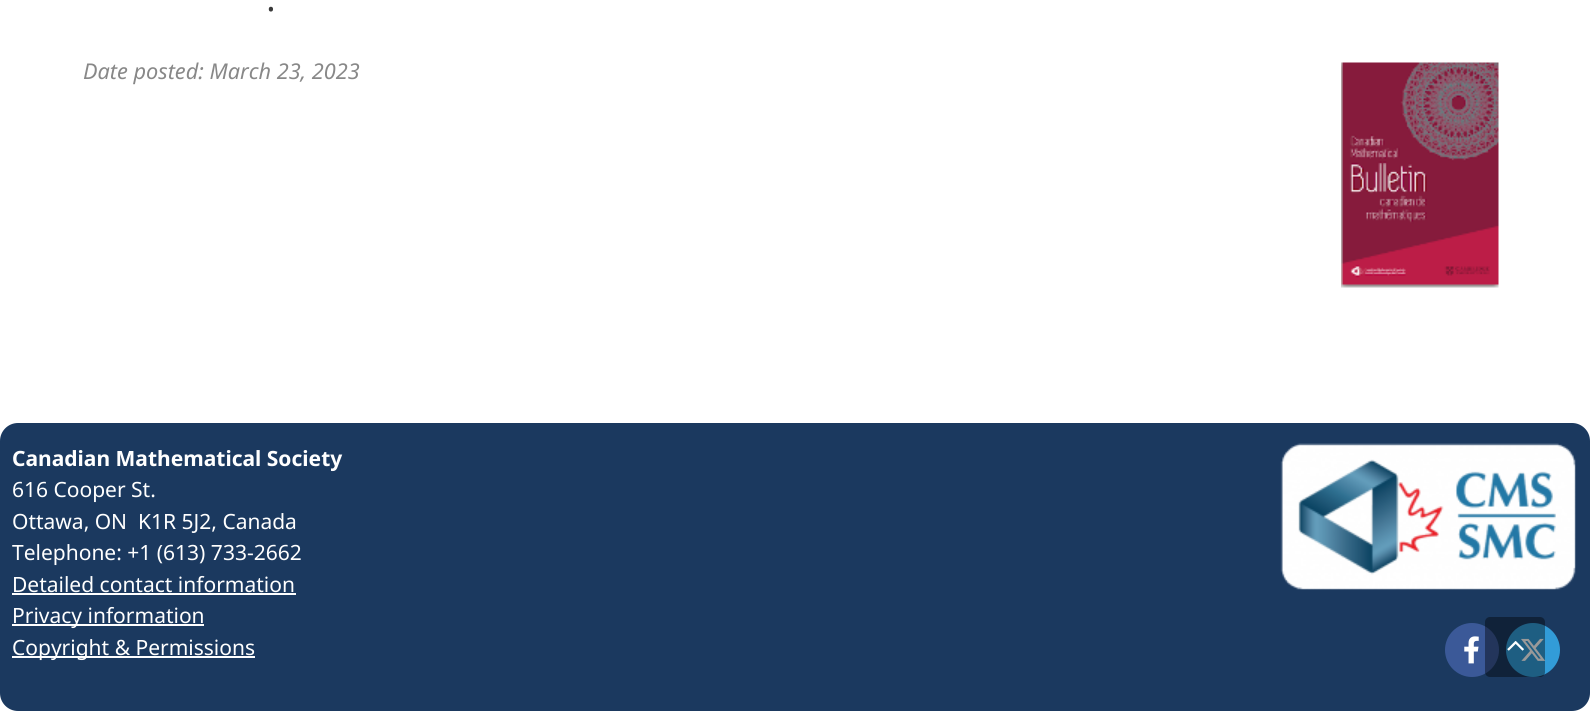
#include <cairo.h>
#include <math.h>
#include <stddef.h>

typedef struct { double x, y; const char *s; } line_t;

static void ink(cairo_t *ctx, unsigned color) {
    cairo_set_source_rgb(ctx, (color >> 16) / 255.0, (color >> 8 & 255) / 255.0, (color & 255) / 255.0);
}

static void round_path(cairo_t *ctx, double x, double y, double w, double h, double r) {
    cairo_new_sub_path(ctx);
    cairo_arc(ctx, x + w - r, y + h - r, r, 0, M_PI / 2);
    cairo_arc(ctx, x + r, y + h - r, r, M_PI / 2, M_PI);
    cairo_arc(ctx, x + r, y + r, r, M_PI, 1.5 * M_PI);
    cairo_arc(ctx, x + w - r, y + r, r, 1.5 * M_PI, 2 * M_PI);
    cairo_close_path(ctx);
}

static void paste(cairo_t *ctx, const char *path, double x, double y, double w, double h) {
    cairo_surface_t *image = cairo_image_surface_create_from_png(path);
    cairo_save(ctx);
    cairo_set_source_surface(ctx, image, x, y);
    cairo_rectangle(ctx, x, y, w, h);
    cairo_fill(ctx);
    cairo_restore(ctx);
    cairo_surface_destroy(image);
}

int main(void) {
    cairo_surface_t *surface = cairo_image_surface_create(CAIRO_FORMAT_RGB24, 1590, 721);
    cairo_t *ctx = cairo_create(surface);
    cairo_font_options_t *options = cairo_font_options_create();
    cairo_font_options_set_hint_metrics(options, CAIRO_HINT_METRICS_OFF);
    cairo_font_options_set_hint_style(options, CAIRO_HINT_STYLE_NONE);
    cairo_set_font_options(ctx, options);
    cairo_set_miter_limit(ctx, 4);
    ink(ctx, 0xFFFFFF);
    cairo_paint(ctx);
    cairo_select_font_face(ctx, "Noto Sans Light", CAIRO_FONT_SLANT_NORMAL, CAIRO_FONT_WEIGHT_NORMAL);
    cairo_set_font_size(ctx, 48);
    ink(ctx, 0x3A3A3A);
    cairo_move_to(ctx, 265, 11);
    cairo_show_text(ctx, ".");
    cairo_select_font_face(ctx, "Noto Sans", CAIRO_FONT_SLANT_ITALIC, CAIRO_FONT_WEIGHT_NORMAL);
    cairo_set_font_size(ctx, 21.7);
    ink(ctx, 0x888888);
    cairo_move_to(ctx, 83, 79);
    cairo_show_text(ctx, "Date posted: March 23, 2023");
    paste(ctx, "media/1.png", 1341, 62, 158, 226);
    ink(ctx, 0x1B395F);
    round_path(ctx, 0, 423, 1590, 288, 18);
    cairo_fill(ctx);
    cairo_select_font_face(ctx, "Noto Sans", CAIRO_FONT_SLANT_NORMAL, CAIRO_FONT_WEIGHT_BOLD);
    cairo_set_font_size(ctx, 21);
    ink(ctx, 0xFFFFFF);
    cairo_move_to(ctx, 12, 466);
    cairo_show_text(ctx, "Canadian Mathematical Society");
    cairo_select_font_face(ctx, "Noto Sans", CAIRO_FONT_SLANT_NORMAL, CAIRO_FONT_WEIGHT_NORMAL);
    {
        static const line_t items[] = {
            {12, 497, "616 Cooper St."},
            {12, 529, "Ottawa, ON  K1R 5J2, Canada"},
            {12, 560, "Telephone: +1 (613) 733-2662"},
            {12, 592, "Detailed contact information"},
        };
        for (size_t i = 0; i < sizeof items / sizeof *items; i++) {
            cairo_move_to(ctx, items[i].x, items[i].y);
            cairo_show_text(ctx, items[i].s);
        }
    }
    cairo_rectangle(ctx, 12, 593, 284, 2);
    cairo_fill(ctx);
    cairo_rectangle(ctx, 12, 624, 192, 2);
    cairo_fill(ctx);
    cairo_move_to(ctx, 12, 623);
    cairo_show_text(ctx, "Privacy information");
    cairo_rectangle(ctx, 12, 656, 243, 2);
    cairo_fill(ctx);
    cairo_move_to(ctx, 12, 655);
    cairo_show_text(ctx, "Copyright & Permissions");
    paste(ctx, "media/2.png", 1280, 443, 296, 147);
    ink(ctx, 0x3B5998);
    cairo_arc(ctx, 1472, 650, 27, 0, 2 * M_PI);
    cairo_fill(ctx);
    paste(ctx, "media/3.png", 1464, 636, 15, 28);
    ink(ctx, 0x329CD8);
    cairo_arc(ctx, 1533, 650, 27, 0, 2 * M_PI);
    cairo_fill(ctx);
    paste(ctx, "media/4.png", 1521, 638, 25, 23);
    cairo_set_source_rgba(ctx, 0, 0, 0, 0.4);
    round_path(ctx, 1485, 617, 60, 60, 5);
    cairo_fill(ctx);
    paste(ctx, "media/5.png", 1507, 640, 17, 11);
    cairo_surface_write_to_png(surface, "image.png");
    cairo_font_options_destroy(options);
    cairo_destroy(ctx);
    cairo_surface_destroy(surface);
    return 0;
}
